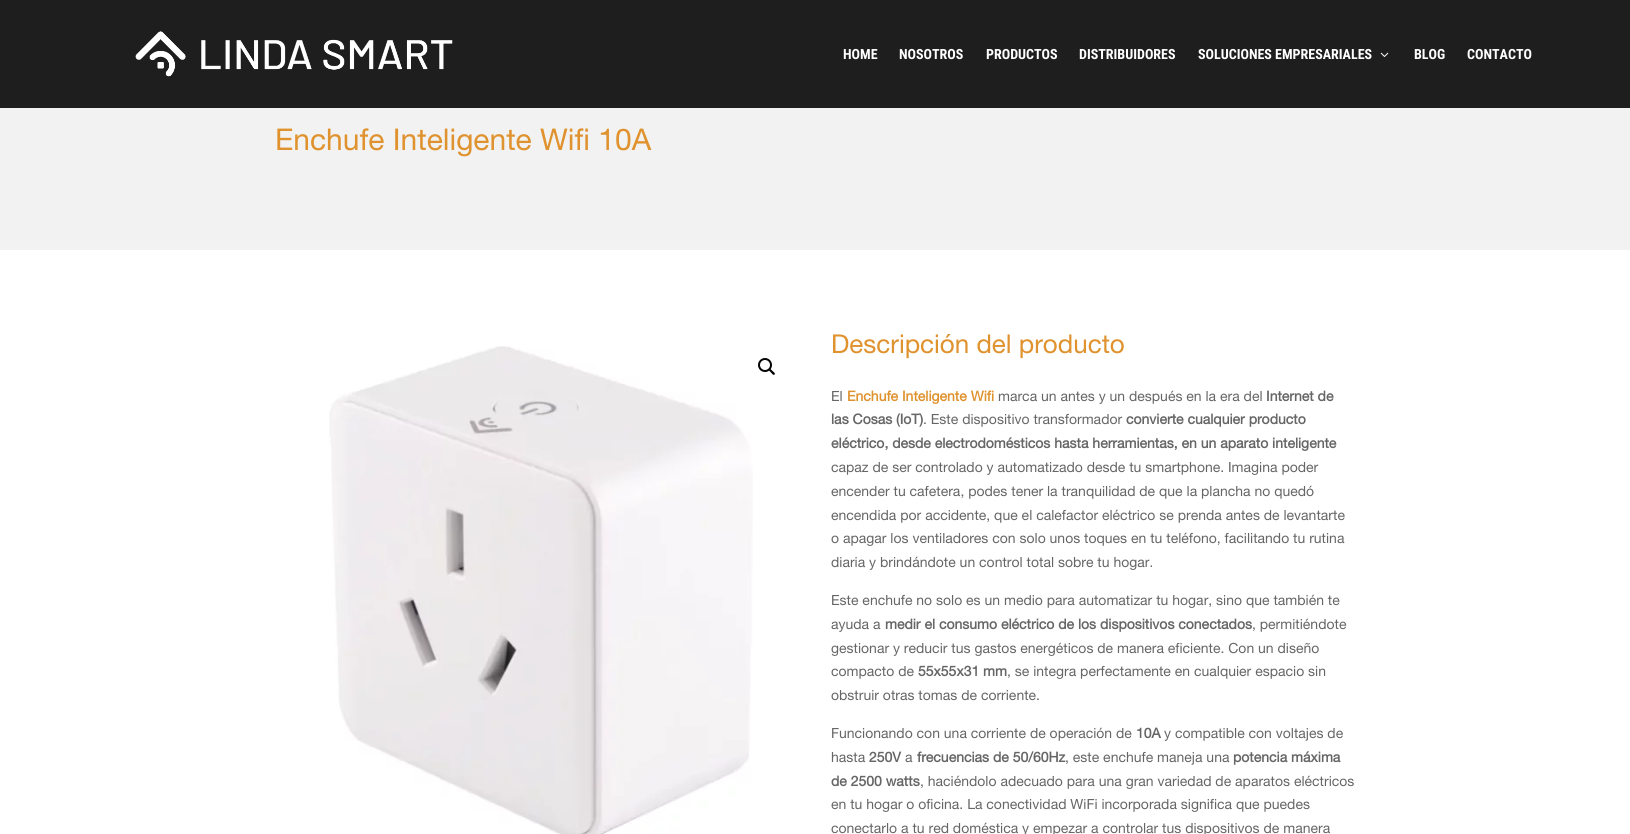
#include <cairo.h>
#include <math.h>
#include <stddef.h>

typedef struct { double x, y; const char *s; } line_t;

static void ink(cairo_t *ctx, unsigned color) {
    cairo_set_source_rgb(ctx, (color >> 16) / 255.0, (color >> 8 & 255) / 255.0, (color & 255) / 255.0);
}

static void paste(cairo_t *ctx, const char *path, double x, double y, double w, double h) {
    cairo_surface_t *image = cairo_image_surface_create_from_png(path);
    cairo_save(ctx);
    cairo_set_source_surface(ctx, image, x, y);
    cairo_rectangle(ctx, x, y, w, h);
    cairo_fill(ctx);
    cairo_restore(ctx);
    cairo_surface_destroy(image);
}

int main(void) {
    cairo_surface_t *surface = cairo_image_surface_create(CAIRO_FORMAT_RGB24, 1630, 834);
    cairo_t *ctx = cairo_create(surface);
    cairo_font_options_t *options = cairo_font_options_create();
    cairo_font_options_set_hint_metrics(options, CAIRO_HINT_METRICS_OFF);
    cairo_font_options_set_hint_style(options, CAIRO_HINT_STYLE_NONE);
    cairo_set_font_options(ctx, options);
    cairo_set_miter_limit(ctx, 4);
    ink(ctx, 0xFFFFFF);
    cairo_paint(ctx);
    ink(ctx, 0x1E1E1E);
    cairo_rectangle(ctx, 0, 0, 1630, 108);
    cairo_fill(ctx);
    paste(ctx, "media/1.png", 135, 31, 318, 46);
    cairo_select_font_face(ctx, "Roboto Condensed", CAIRO_FONT_SLANT_NORMAL, CAIRO_FONT_WEIGHT_BOLD);
    cairo_set_font_size(ctx, 14);
    ink(ctx, 0xFFFFFF);
    {
        static const line_t items[] = {
            {843, 59, "HOME"},
            {899, 59, "NOSOTROS"},
            {986, 59, "PRODUCTOS"},
            {1079, 59, "DISTRIBUIDORES"},
            {1198, 59, "SOLUCIONES EMPRESARIALES"},
        };
        for (size_t i = 0; i < sizeof items / sizeof *items; i++) {
            cairo_move_to(ctx, items[i].x, items[i].y);
            cairo_show_text(ctx, items[i].s);
        }
    }
    paste(ctx, "media/2.png", 1380, 52, 9, 5);
    cairo_move_to(ctx, 1414, 59);
    cairo_show_text(ctx, "BLOG");
    cairo_move_to(ctx, 1467, 59);
    cairo_show_text(ctx, "CONTACTO");
    ink(ctx, 0xF2F2F2);
    cairo_rectangle(ctx, 0, 108, 1630, 142);
    cairo_fill(ctx);
    cairo_select_font_face(ctx, "Helvetica Neue", CAIRO_FONT_SLANT_NORMAL, CAIRO_FONT_WEIGHT_NORMAL);
    cairo_set_font_size(ctx, 30);
    ink(ctx, 0xDF922E);
    cairo_move_to(ctx, 275, 150);
    cairo_show_text(ctx, "Enchufe Inteligente Wifi 10A");
    paste(ctx, "media/3.png", 329, 346, 424, 488);
    cairo_arc(ctx, 765, 365, 6, 0, 2 * M_PI);
    ink(ctx, 0x000000);
    cairo_stroke(ctx);
    cairo_new_path(ctx);
    cairo_move_to(ctx, 769, 369);
    cairo_curve_to(ctx, 770, 368, 772, 370.5, 772.5, 371);
    cairo_curve_to(ctx, 773, 371.5, 776, 373.5, 774.5, 374.5);
    cairo_curve_to(ctx, 773.5, 376, 771.5, 373, 771, 372.5);
    cairo_curve_to(ctx, 770.5, 372, 768, 370, 769, 369);
    cairo_close_path(ctx);
    cairo_fill(ctx);
    cairo_set_font_size(ctx, 26);
    ink(ctx, 0xDF922E);
    cairo_move_to(ctx, 831, 353);
    cairo_show_text(ctx, "Descripción del producto");
    cairo_set_font_size(ctx, 14);
    ink(ctx, 0x666666);
    cairo_move_to(ctx, 831, 401);
    cairo_show_text(ctx, "El");
    cairo_select_font_face(ctx, "Helvetica Neue", CAIRO_FONT_SLANT_NORMAL, CAIRO_FONT_WEIGHT_BOLD);
    ink(ctx, 0xDF922E);
    cairo_move_to(ctx, 847, 401);
    cairo_show_text(ctx, "Enchufe Inteligente Wifi");
    cairo_select_font_face(ctx, "Helvetica Neue", CAIRO_FONT_SLANT_NORMAL, CAIRO_FONT_WEIGHT_NORMAL);
    ink(ctx, 0x666666);
    cairo_move_to(ctx, 998, 401);
    cairo_show_text(ctx, "marca un antes y un después en la era del");
    cairo_select_font_face(ctx, "Helvetica Neue", CAIRO_FONT_SLANT_NORMAL, CAIRO_FONT_WEIGHT_BOLD);
    cairo_move_to(ctx, 1266, 401);
    cairo_show_text(ctx, "Internet de");
    cairo_move_to(ctx, 831, 424);
    cairo_show_text(ctx, "las Cosas (IoT)");
    cairo_select_font_face(ctx, "Helvetica Neue", CAIRO_FONT_SLANT_NORMAL, CAIRO_FONT_WEIGHT_NORMAL);
    cairo_move_to(ctx, 923, 424);
    cairo_show_text(ctx, ". Este dispositivo transformador");
    cairo_select_font_face(ctx, "Helvetica Neue", CAIRO_FONT_SLANT_NORMAL, CAIRO_FONT_WEIGHT_BOLD);
    cairo_move_to(ctx, 1126, 424);
    cairo_show_text(ctx, "convierte cualquier producto");
    cairo_move_to(ctx, 831, 448);
    cairo_show_text(ctx, "eléctrico, desde electrodomésticos hasta herramientas, en un aparato inteligente");
    cairo_select_font_face(ctx, "Helvetica Neue", CAIRO_FONT_SLANT_NORMAL, CAIRO_FONT_WEIGHT_NORMAL);
    {
        static const line_t items[] = {
            {831, 472, "capaz de ser controlado y automatizado desde tu smartphone. Imagina poder"},
            {831, 496, "encender tu cafetera, podes tener la tranquilidad de que la plancha no quedó"},
            {831, 520, "encendida por accidente, que el calefactor eléctrico se prenda antes de levantarte"},
            {831, 543, "o apagar los ventiladores con solo unos toques en tu teléfono, facilitando tu rutina"},
            {831, 567, "diaria y brindándote un control total sobre tu hogar."},
            {831, 605, "Este enchufe no solo es un medio para automatizar tu hogar, sino que también te"},
            {831, 629, "ayuda a"},
        };
        for (size_t i = 0; i < sizeof items / sizeof *items; i++) {
            cairo_move_to(ctx, items[i].x, items[i].y);
            cairo_show_text(ctx, items[i].s);
        }
    }
    cairo_select_font_face(ctx, "Helvetica Neue", CAIRO_FONT_SLANT_NORMAL, CAIRO_FONT_WEIGHT_BOLD);
    cairo_move_to(ctx, 885, 629);
    cairo_show_text(ctx, "medir el consumo eléctrico de los dispositivos conectados");
    cairo_select_font_face(ctx, "Helvetica Neue", CAIRO_FONT_SLANT_NORMAL, CAIRO_FONT_WEIGHT_NORMAL);
    {
        static const line_t items[] = {
            {1252, 629, ", permitiéndote"},
            {831, 653, "gestionar y reducir tus gastos energéticos de manera eficiente. Con un diseño"},
            {831, 676, "compacto de"},
        };
        for (size_t i = 0; i < sizeof items / sizeof *items; i++) {
            cairo_move_to(ctx, items[i].x, items[i].y);
            cairo_show_text(ctx, items[i].s);
        }
    }
    cairo_select_font_face(ctx, "Helvetica Neue", CAIRO_FONT_SLANT_NORMAL, CAIRO_FONT_WEIGHT_BOLD);
    cairo_move_to(ctx, 918, 676);
    cairo_show_text(ctx, "55x55x31 mm");
    cairo_select_font_face(ctx, "Helvetica Neue", CAIRO_FONT_SLANT_NORMAL, CAIRO_FONT_WEIGHT_NORMAL);
    {
        static const line_t items[] = {
            {1007, 676, ", se integra perfectamente en cualquier espacio sin"},
            {831, 700, "obstruir otras tomas de corriente."},
            {831, 738, "Funcionando con una corriente de operación de"},
        };
        for (size_t i = 0; i < sizeof items / sizeof *items; i++) {
            cairo_move_to(ctx, items[i].x, items[i].y);
            cairo_show_text(ctx, items[i].s);
        }
    }
    cairo_select_font_face(ctx, "Helvetica Neue", CAIRO_FONT_SLANT_NORMAL, CAIRO_FONT_WEIGHT_BOLD);
    cairo_move_to(ctx, 1136, 738);
    cairo_show_text(ctx, "10A");
    cairo_select_font_face(ctx, "Helvetica Neue", CAIRO_FONT_SLANT_NORMAL, CAIRO_FONT_WEIGHT_NORMAL);
    cairo_move_to(ctx, 1164, 738);
    cairo_show_text(ctx, "y compatible con voltajes de");
    cairo_move_to(ctx, 831, 762);
    cairo_show_text(ctx, "hasta");
    cairo_select_font_face(ctx, "Helvetica Neue", CAIRO_FONT_SLANT_NORMAL, CAIRO_FONT_WEIGHT_BOLD);
    cairo_move_to(ctx, 869, 762);
    cairo_show_text(ctx, "250V");
    cairo_select_font_face(ctx, "Helvetica Neue", CAIRO_FONT_SLANT_NORMAL, CAIRO_FONT_WEIGHT_NORMAL);
    cairo_move_to(ctx, 905, 762);
    cairo_show_text(ctx, "a");
    cairo_select_font_face(ctx, "Helvetica Neue", CAIRO_FONT_SLANT_NORMAL, CAIRO_FONT_WEIGHT_BOLD);
    cairo_move_to(ctx, 917, 762);
    cairo_show_text(ctx, "frecuencias de 50/60Hz");
    cairo_select_font_face(ctx, "Helvetica Neue", CAIRO_FONT_SLANT_NORMAL, CAIRO_FONT_WEIGHT_NORMAL);
    cairo_move_to(ctx, 1065, 762);
    cairo_show_text(ctx, ", este enchufe maneja una");
    cairo_select_font_face(ctx, "Helvetica Neue", CAIRO_FONT_SLANT_NORMAL, CAIRO_FONT_WEIGHT_BOLD);
    cairo_move_to(ctx, 1233, 762);
    cairo_show_text(ctx, "potencia máxima");
    cairo_move_to(ctx, 831, 786);
    cairo_show_text(ctx, "de 2500 watts");
    cairo_select_font_face(ctx, "Helvetica Neue", CAIRO_FONT_SLANT_NORMAL, CAIRO_FONT_WEIGHT_NORMAL);
    {
        static const line_t items[] = {
            {920, 786, ", haciéndolo adecuado para una gran variedad de aparatos eléctricos"},
            {831, 809, "en tu hogar o oficina. La conectividad WiFi incorporada significa que puedes"},
            {831, 833, "conectarlo a tu red doméstica y empezar a controlar tus dispositivos de manera"},
        };
        for (size_t i = 0; i < sizeof items / sizeof *items; i++) {
            cairo_move_to(ctx, items[i].x, items[i].y);
            cairo_show_text(ctx, items[i].s);
        }
    }
    cairo_surface_write_to_png(surface, "image.png");
    cairo_font_options_destroy(options);
    cairo_destroy(ctx);
    cairo_surface_destroy(surface);
    return 0;
}
